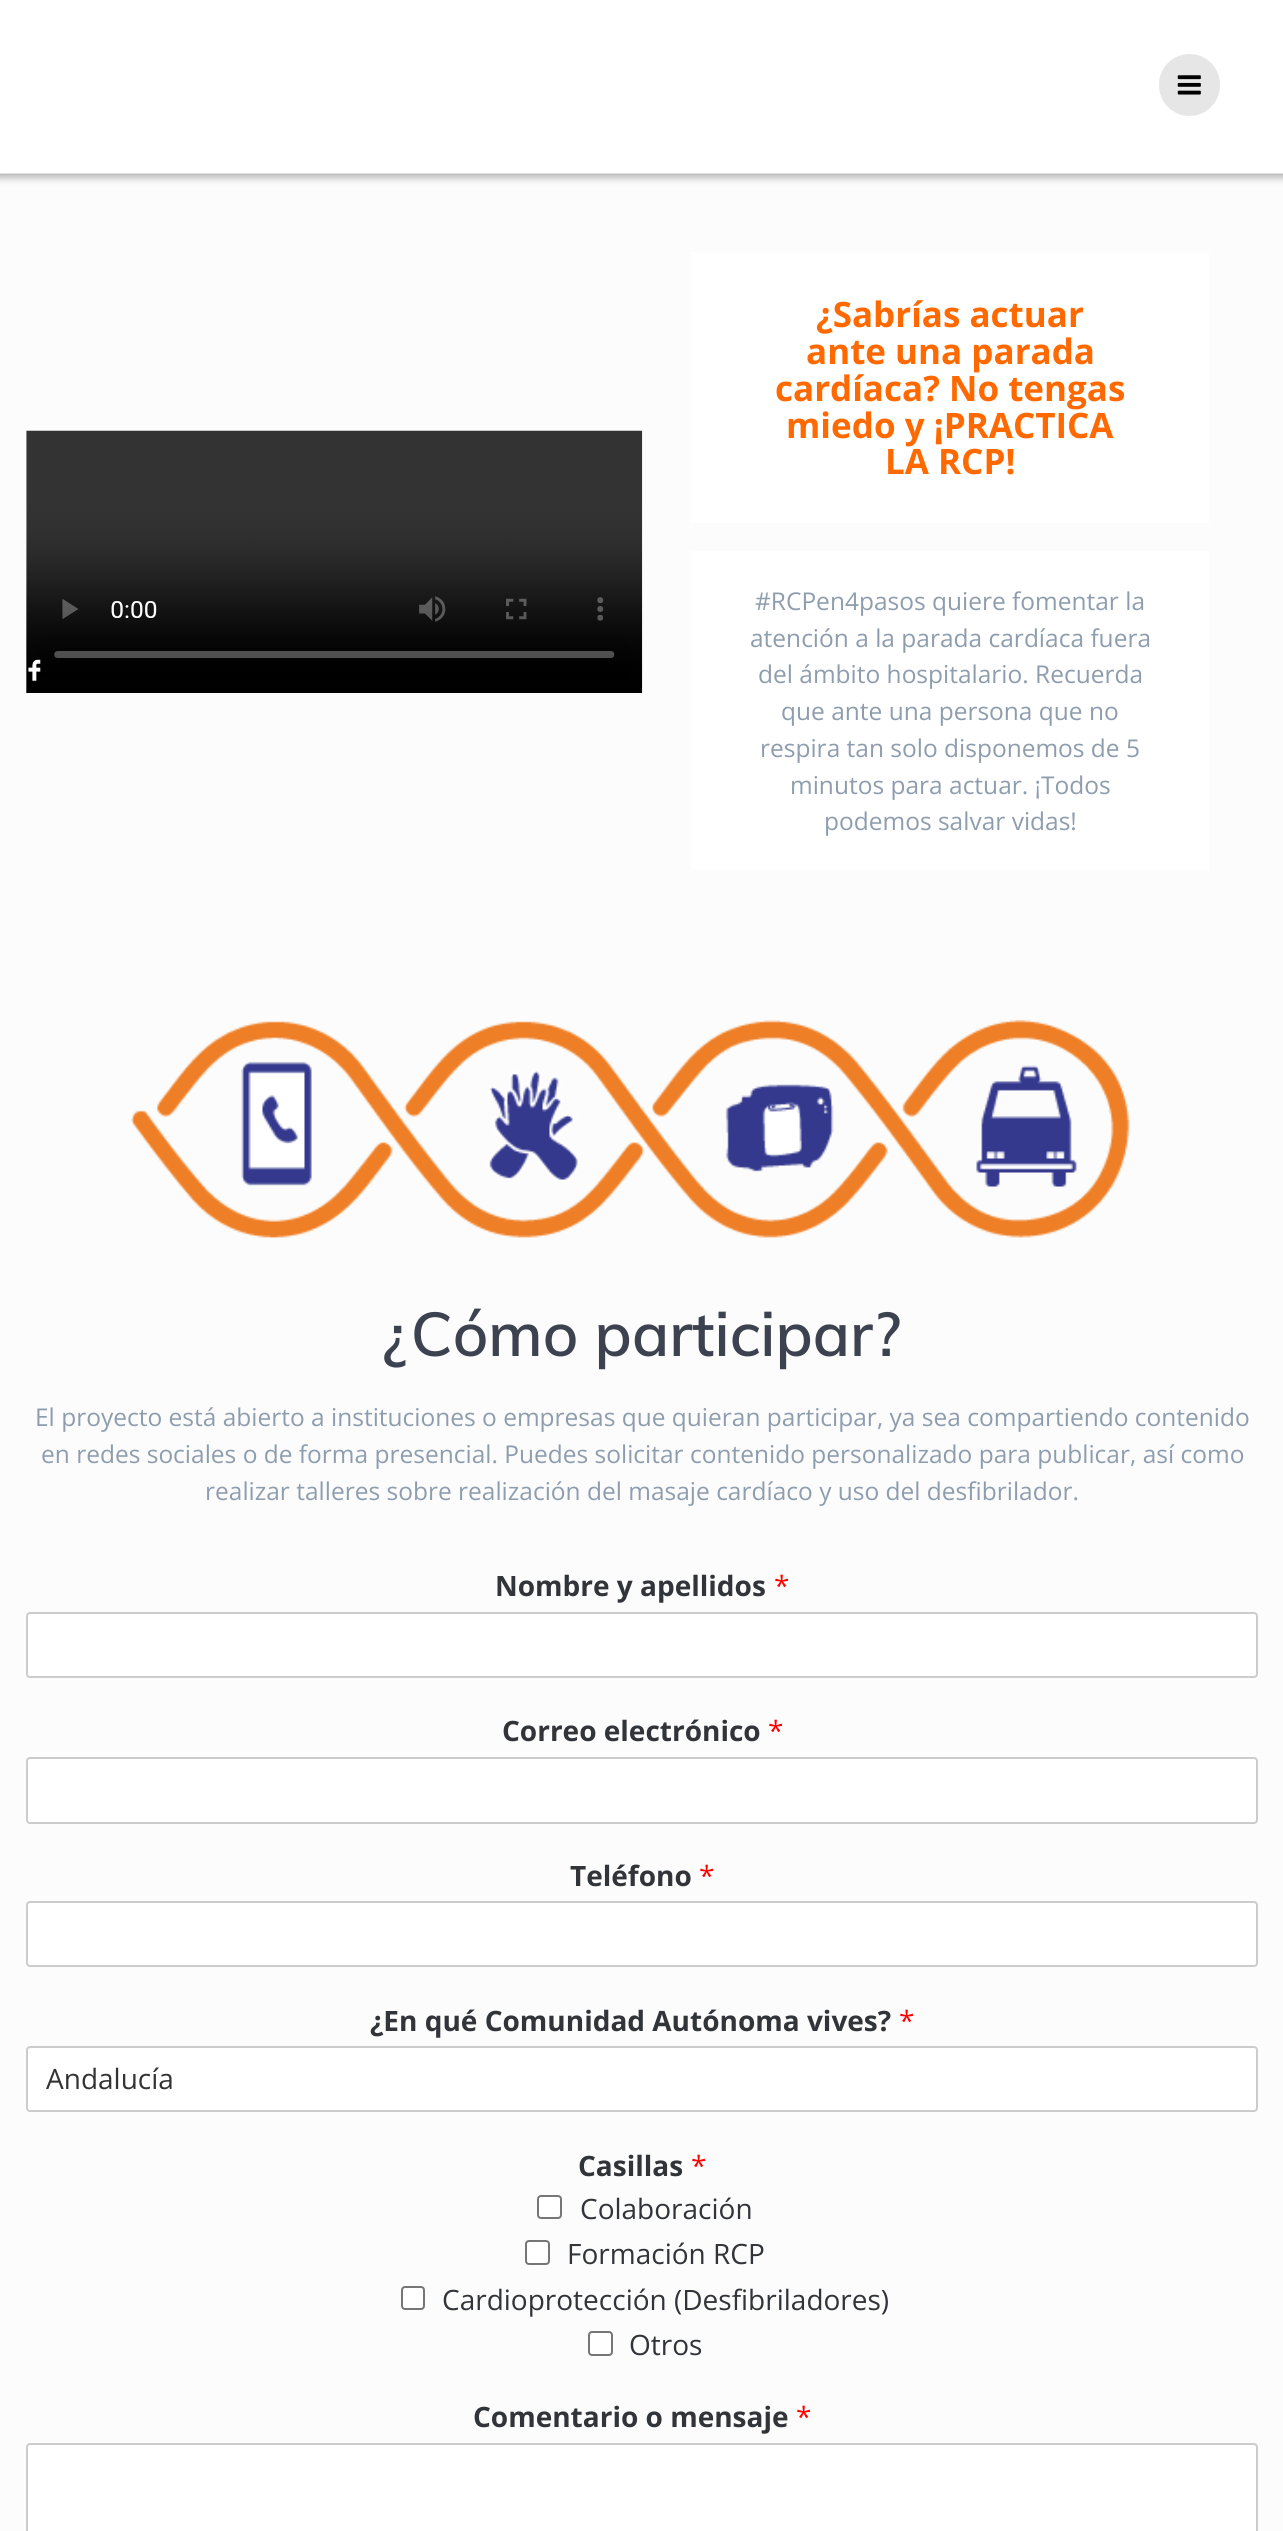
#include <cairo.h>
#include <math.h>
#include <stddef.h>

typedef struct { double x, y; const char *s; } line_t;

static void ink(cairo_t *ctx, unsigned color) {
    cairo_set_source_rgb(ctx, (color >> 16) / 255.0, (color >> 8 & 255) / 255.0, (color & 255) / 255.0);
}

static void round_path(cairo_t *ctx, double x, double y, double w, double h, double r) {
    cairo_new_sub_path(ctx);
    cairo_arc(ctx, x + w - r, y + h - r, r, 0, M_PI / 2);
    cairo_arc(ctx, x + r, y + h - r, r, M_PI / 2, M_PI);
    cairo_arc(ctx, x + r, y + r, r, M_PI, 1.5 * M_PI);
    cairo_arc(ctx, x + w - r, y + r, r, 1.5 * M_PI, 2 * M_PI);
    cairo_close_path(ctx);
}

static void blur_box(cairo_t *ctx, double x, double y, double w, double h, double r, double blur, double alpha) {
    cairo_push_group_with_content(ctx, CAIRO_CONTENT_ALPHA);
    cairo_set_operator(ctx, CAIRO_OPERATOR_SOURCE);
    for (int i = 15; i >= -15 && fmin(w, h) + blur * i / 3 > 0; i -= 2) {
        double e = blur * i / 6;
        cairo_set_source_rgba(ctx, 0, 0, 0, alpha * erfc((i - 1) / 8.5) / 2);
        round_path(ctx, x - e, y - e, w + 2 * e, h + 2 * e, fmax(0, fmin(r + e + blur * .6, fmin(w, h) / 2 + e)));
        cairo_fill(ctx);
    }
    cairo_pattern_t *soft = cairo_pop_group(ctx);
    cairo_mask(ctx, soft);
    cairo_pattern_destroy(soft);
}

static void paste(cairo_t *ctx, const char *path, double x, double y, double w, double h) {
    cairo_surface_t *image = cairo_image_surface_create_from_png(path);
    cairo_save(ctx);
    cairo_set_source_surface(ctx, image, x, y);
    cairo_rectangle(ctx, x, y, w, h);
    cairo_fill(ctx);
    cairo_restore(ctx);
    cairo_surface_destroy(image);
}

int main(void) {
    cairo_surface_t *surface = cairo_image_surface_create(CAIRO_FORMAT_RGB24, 1283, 2531);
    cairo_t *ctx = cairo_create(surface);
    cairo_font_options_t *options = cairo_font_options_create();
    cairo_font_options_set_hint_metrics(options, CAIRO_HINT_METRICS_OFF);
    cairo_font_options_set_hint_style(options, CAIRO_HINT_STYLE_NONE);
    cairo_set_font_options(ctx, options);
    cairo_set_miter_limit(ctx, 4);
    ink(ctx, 0xFCFCFC);
    cairo_paint(ctx);
    ink(ctx, 0x000000);
    blur_box(ctx, -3, -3, 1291, 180, 0, 4.5, 0.33);
    ink(ctx, 0xFFFFFF);
    cairo_rectangle(ctx, 0, 0, 1283, 173);
    cairo_fill(ctx);
    cairo_set_source_rgba(ctx, 1, 1, 1, 0.5);
    cairo_rectangle(ctx, 0, 173, 1283, 1);
    cairo_fill(ctx);
    ink(ctx, 0xE6E6E6);
    round_path(ctx, 1159, 54, 61, 62, 30.5);
    cairo_fill(ctx);
    paste(ctx, "media/1.png", 1177, 75, 24, 20);
    paste(ctx, "media/3.png", 26, 430, 617, 263);
    paste(ctx, "media/2.png", 28, 659, 13, 22);
    ink(ctx, 0xFFFFFF);
    cairo_rectangle(ctx, 691, 252, 518, 271);
    cairo_fill(ctx);
    cairo_select_font_face(ctx, "Open Sans", CAIRO_FONT_SLANT_NORMAL, CAIRO_FONT_WEIGHT_BOLD);
    cairo_set_font_size(ctx, 35);
    ink(ctx, 0xFF6900);
    {
        static const line_t items[] = {
            {816, 327, "¿Sabrías actuar"},
            {806, 364, "ante una parada"},
            {775, 401, "cardíaca? No tengas"},
            {786, 438, "miedo y ¡PRACTICA"},
            {885, 474, "LA RCP!"},
        };
        for (size_t i = 0; i < sizeof items / sizeof *items; i++) {
            cairo_move_to(ctx, items[i].x, items[i].y);
            cairo_show_text(ctx, items[i].s);
        }
    }
    ink(ctx, 0xFFFFFF);
    cairo_rectangle(ctx, 691, 551, 518, 319);
    cairo_fill(ctx);
    cairo_select_font_face(ctx, "Open Sans", CAIRO_FONT_SLANT_NORMAL, CAIRO_FONT_WEIGHT_NORMAL);
    cairo_set_font_size(ctx, 24.5);
    ink(ctx, 0x8E9DAE);
    {
        static const line_t items[] = {
            {755, 610, "#RCPen4pasos quiere fomentar la"},
            {750, 647, "atención a la parada cardíaca fuera"},
            {758, 683, "del ámbito hospitalario. Recuerda"},
            {781, 720, "que ante una persona que no"},
            {760, 757, "respira tan solo disponemos de 5"},
            {790, 794, "minutos para actuar. ¡Todos"},
            {824, 830, "podemos salvar vidas!"},
        };
        for (size_t i = 0; i < sizeof items / sizeof *items; i++) {
            cairo_move_to(ctx, items[i].x, items[i].y);
            cairo_show_text(ctx, items[i].s);
        }
    }
    paste(ctx, "media/4.png", 131, 1019, 999, 219);
    cairo_select_font_face(ctx, "Muli SemiBold", CAIRO_FONT_SLANT_NORMAL, CAIRO_FONT_WEIGHT_NORMAL);
    cairo_set_font_size(ctx, 61.25);
    ink(ctx, 0x3C424F);
    cairo_move_to(ctx, 383, 1356);
    cairo_show_text(ctx, "¿Cómo participar?");
    cairo_select_font_face(ctx, "Open Sans", CAIRO_FONT_SLANT_NORMAL, CAIRO_FONT_WEIGHT_NORMAL);
    cairo_set_font_size(ctx, 24.5);
    ink(ctx, 0x8E9DAE);
    {
        static const line_t items[] = {
            {35, 1426, "El proyecto está abierto a instituciones o empresas que quieran participar, ya sea compartiendo contenido"},
            {41, 1463, "en redes sociales o de forma presencial. Puedes solicitar contenido personalizado para publicar, así como"},
            {205, 1500, "realizar talleres sobre realización del masaje cardíaco y uso del desfibrilador."},
        };
        for (size_t i = 0; i < sizeof items / sizeof *items; i++) {
            cairo_move_to(ctx, items[i].x, items[i].y);
            cairo_show_text(ctx, items[i].s);
        }
    }
    cairo_select_font_face(ctx, "Open Sans", CAIRO_FONT_SLANT_NORMAL, CAIRO_FONT_WEIGHT_BOLD);
    cairo_set_font_size(ctx, 28);
    ink(ctx, 0x313439);
    cairo_move_to(ctx, 495, 1596);
    cairo_show_text(ctx, "Nombre y apellidos");
    cairo_select_font_face(ctx, "Open Sans", CAIRO_FONT_SLANT_NORMAL, CAIRO_FONT_WEIGHT_NORMAL);
    ink(ctx, 0xFF0000);
    cairo_move_to(ctx, 774, 1596);
    cairo_show_text(ctx, "*");
    ink(ctx, 0xFFFFFF);
    round_path(ctx, 27, 1613, 1230, 64, 3);
    cairo_fill_preserve(ctx);
    ink(ctx, 0xCCCCCC);
    cairo_stroke(ctx);
    cairo_select_font_face(ctx, "Open Sans", CAIRO_FONT_SLANT_NORMAL, CAIRO_FONT_WEIGHT_BOLD);
    ink(ctx, 0x313439);
    cairo_move_to(ctx, 502, 1741);
    cairo_show_text(ctx, "Correo electrónico");
    cairo_select_font_face(ctx, "Open Sans", CAIRO_FONT_SLANT_NORMAL, CAIRO_FONT_WEIGHT_NORMAL);
    ink(ctx, 0xFF0000);
    cairo_move_to(ctx, 768, 1741);
    cairo_show_text(ctx, "*");
    ink(ctx, 0xFFFFFF);
    round_path(ctx, 27, 1758, 1230, 65, 3);
    cairo_fill_preserve(ctx);
    ink(ctx, 0xCCCCCC);
    cairo_stroke(ctx);
    cairo_select_font_face(ctx, "Open Sans", CAIRO_FONT_SLANT_NORMAL, CAIRO_FONT_WEIGHT_BOLD);
    ink(ctx, 0x313439);
    cairo_move_to(ctx, 570, 1886);
    cairo_show_text(ctx, "Teléfono");
    cairo_select_font_face(ctx, "Open Sans", CAIRO_FONT_SLANT_NORMAL, CAIRO_FONT_WEIGHT_NORMAL);
    ink(ctx, 0xFF0000);
    cairo_move_to(ctx, 699, 1886);
    cairo_show_text(ctx, "*");
    ink(ctx, 0xFFFFFF);
    round_path(ctx, 27, 1902, 1230, 64, 3);
    cairo_fill_preserve(ctx);
    ink(ctx, 0xCCCCCC);
    cairo_stroke(ctx);
    cairo_select_font_face(ctx, "Open Sans", CAIRO_FONT_SLANT_NORMAL, CAIRO_FONT_WEIGHT_BOLD);
    ink(ctx, 0x313439);
    cairo_move_to(ctx, 370, 2031);
    cairo_show_text(ctx, "¿En qué Comunidad Autónoma vives?");
    cairo_select_font_face(ctx, "Open Sans", CAIRO_FONT_SLANT_NORMAL, CAIRO_FONT_WEIGHT_NORMAL);
    ink(ctx, 0xFF0000);
    cairo_move_to(ctx, 899, 2031);
    cairo_show_text(ctx, "*");
    ink(ctx, 0xFFFFFF);
    round_path(ctx, 27, 2047, 1230, 64, 3);
    cairo_fill_preserve(ctx);
    ink(ctx, 0xCCCCCC);
    cairo_stroke(ctx);
    ink(ctx, 0x333333);
    cairo_move_to(ctx, 46, 2089);
    cairo_show_text(ctx, "Andalucía");
    cairo_select_font_face(ctx, "Open Sans", CAIRO_FONT_SLANT_NORMAL, CAIRO_FONT_WEIGHT_BOLD);
    ink(ctx, 0x313439);
    cairo_move_to(ctx, 578, 2176);
    cairo_show_text(ctx, "Casillas");
    cairo_select_font_face(ctx, "Open Sans", CAIRO_FONT_SLANT_NORMAL, CAIRO_FONT_WEIGHT_NORMAL);
    ink(ctx, 0xFF0000);
    cairo_move_to(ctx, 691, 2176);
    cairo_show_text(ctx, "*");
    ink(ctx, 0xFFFFFF);
    round_path(ctx, 538, 2196, 23, 22, 3);
    cairo_fill_preserve(ctx);
    ink(ctx, 0x767676);
    cairo_stroke(ctx);
    ink(ctx, 0x313439);
    cairo_move_to(ctx, 580, 2219);
    cairo_show_text(ctx, "Colaboración");
    ink(ctx, 0xFFFFFF);
    round_path(ctx, 526, 2241, 23, 23, 3);
    cairo_fill_preserve(ctx);
    ink(ctx, 0x767676);
    cairo_stroke(ctx);
    ink(ctx, 0x313439);
    cairo_move_to(ctx, 567, 2264);
    cairo_show_text(ctx, "Formación RCP");
    ink(ctx, 0xFFFFFF);
    round_path(ctx, 402, 2287, 22, 22, 3);
    cairo_fill_preserve(ctx);
    ink(ctx, 0x767676);
    cairo_stroke(ctx);
    ink(ctx, 0x313439);
    cairo_move_to(ctx, 442, 2310);
    cairo_show_text(ctx, "Cardioprotección (Desfibriladores)");
    ink(ctx, 0xFFFFFF);
    round_path(ctx, 589, 2332, 23, 23, 3);
    cairo_fill_preserve(ctx);
    ink(ctx, 0x767676);
    cairo_stroke(ctx);
    ink(ctx, 0x313439);
    cairo_move_to(ctx, 629, 2355);
    cairo_show_text(ctx, "Otros");
    cairo_select_font_face(ctx, "Open Sans", CAIRO_FONT_SLANT_NORMAL, CAIRO_FONT_WEIGHT_BOLD);
    cairo_move_to(ctx, 473, 2427);
    cairo_show_text(ctx, "Comentario o mensaje");
    cairo_select_font_face(ctx, "Open Sans", CAIRO_FONT_SLANT_NORMAL, CAIRO_FONT_WEIGHT_NORMAL);
    ink(ctx, 0xFF0000);
    cairo_move_to(ctx, 796, 2427);
    cairo_show_text(ctx, "*");
    ink(ctx, 0xFFFFFF);
    round_path(ctx, 27, 2444, 1230, 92, 3);
    cairo_fill_preserve(ctx);
    ink(ctx, 0xCCCCCC);
    cairo_stroke(ctx);
    cairo_surface_write_to_png(surface, "image.png");
    cairo_font_options_destroy(options);
    cairo_destroy(ctx);
    cairo_surface_destroy(surface);
    return 0;
}
